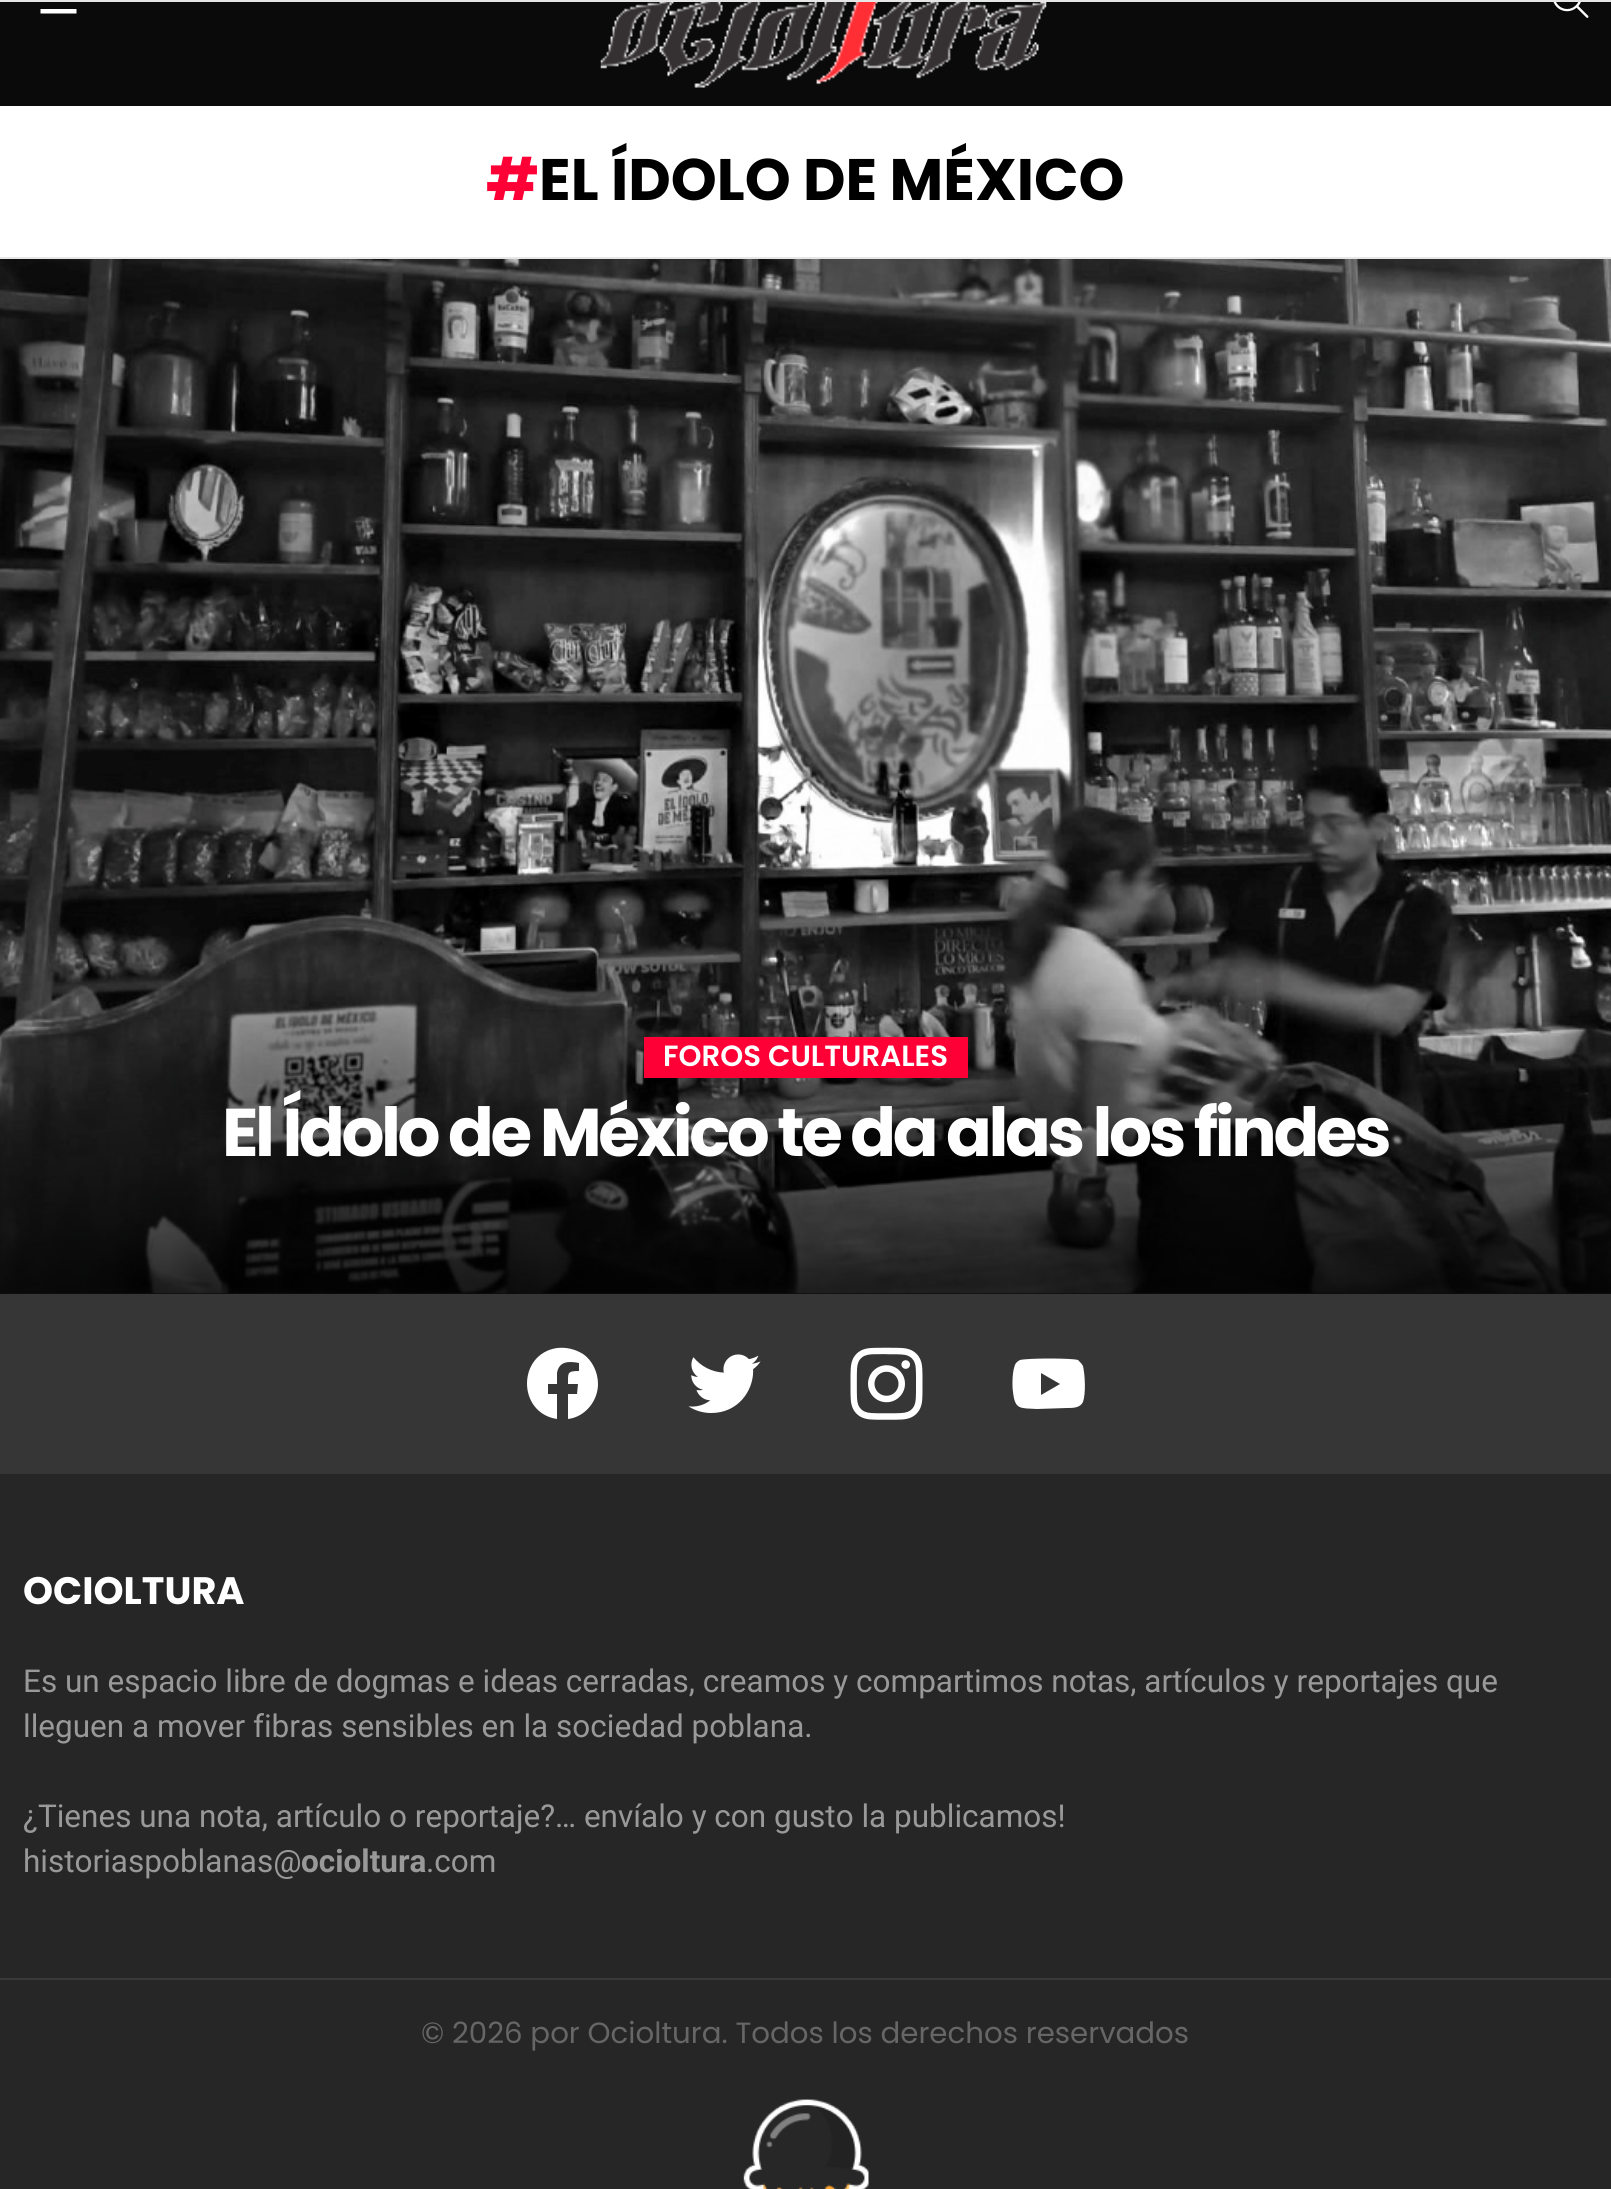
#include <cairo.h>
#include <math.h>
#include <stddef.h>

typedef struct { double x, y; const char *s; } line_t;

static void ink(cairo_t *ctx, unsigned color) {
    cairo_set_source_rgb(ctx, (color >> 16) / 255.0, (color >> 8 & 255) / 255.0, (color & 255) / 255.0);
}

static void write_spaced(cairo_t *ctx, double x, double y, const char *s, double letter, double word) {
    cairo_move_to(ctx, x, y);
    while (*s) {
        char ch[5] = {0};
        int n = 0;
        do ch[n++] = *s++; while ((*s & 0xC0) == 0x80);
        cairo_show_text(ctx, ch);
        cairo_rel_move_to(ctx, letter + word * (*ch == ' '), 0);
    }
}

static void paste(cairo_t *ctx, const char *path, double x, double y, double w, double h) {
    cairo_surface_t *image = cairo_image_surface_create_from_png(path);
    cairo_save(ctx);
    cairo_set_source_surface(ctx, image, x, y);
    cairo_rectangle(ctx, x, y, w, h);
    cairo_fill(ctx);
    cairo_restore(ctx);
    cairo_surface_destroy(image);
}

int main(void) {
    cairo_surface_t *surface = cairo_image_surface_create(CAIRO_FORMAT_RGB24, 1611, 2189);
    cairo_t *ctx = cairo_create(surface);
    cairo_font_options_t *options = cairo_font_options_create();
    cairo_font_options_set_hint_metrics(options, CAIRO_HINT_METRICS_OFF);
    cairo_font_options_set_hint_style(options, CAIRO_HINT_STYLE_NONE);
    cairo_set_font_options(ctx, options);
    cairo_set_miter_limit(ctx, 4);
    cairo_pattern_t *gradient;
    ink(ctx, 0xFFFFFF);
    cairo_paint(ctx);
    ink(ctx, 0x0A0A0A);
    cairo_rectangle(ctx, 0, 2, 1611, 104);
    cairo_fill(ctx);
    ink(ctx, 0xFFFFFF);
    cairo_new_path(ctx);
    cairo_move_to(ctx, 40.5, -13.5);
    cairo_line_to(ctx, 76.5, -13.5);
    cairo_line_to(ctx, 76.5, -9);
    cairo_line_to(ctx, 40.5, -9);
    cairo_close_path(ctx);
    cairo_move_to(ctx, 40.5, -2);
    cairo_line_to(ctx, 76.5, -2);
    cairo_line_to(ctx, 76.5, 2);
    cairo_line_to(ctx, 40.5, 2);
    cairo_close_path(ctx);
    cairo_move_to(ctx, 40.5, 9);
    cairo_line_to(ctx, 76.5, 9);
    cairo_line_to(ctx, 76.5, 13.5);
    cairo_line_to(ctx, 40.5, 13.5);
    cairo_close_path(ctx);
    cairo_fill(ctx);
    paste(ctx, "media/1.png", 600, 2, 447, 86);
    paste(ctx, "media/2.png", 1553, 2, 36, 16);
    ink(ctx, 0xE6E6E6);
    cairo_rectangle(ctx, 0, 0, 1611, 2);
    cairo_fill(ctx);
    cairo_select_font_face(ctx, "Poppins", CAIRO_FONT_SLANT_NORMAL, CAIRO_FONT_WEIGHT_BOLD);
    cairo_set_font_size(ctx, 58.5);
    ink(ctx, 0xFF0036);
    cairo_move_to(ctx, 486, 200);
    cairo_show_text(ctx, "#");
    ink(ctx, 0x000000);
    cairo_move_to(ctx, 539, 200);
    cairo_show_text(ctx, "EL ÍDOLO DE MÉXICO");
    ink(ctx, 0xE6E6E6);
    cairo_rectangle(ctx, 0, 257, 1611, 2);
    cairo_fill(ctx);
    ink(ctx, 0x333333);
    cairo_rectangle(ctx, 0, 1293, 1611, 1);
    cairo_fill(ctx);
    paste(ctx, "media/3.png", 0, 259, 1611, 1035);
    gradient = cairo_pattern_create_linear(806, 1001, 806, 1294);
    cairo_pattern_add_color_stop_rgba(gradient, 0, 0, 0, 0, 0);
    cairo_pattern_add_color_stop_rgba(gradient, 1, 0, 0, 0, 0.75);
    cairo_set_source(ctx, gradient);
    cairo_pattern_destroy(gradient);
    cairo_rectangle(ctx, 0, 1009, 1611, 285);
    cairo_fill(ctx);
    ink(ctx, 0xFF0036);
    cairo_rectangle(ctx, 644, 1037, 324, 41);
    cairo_fill(ctx);
    cairo_select_font_face(ctx, "Poppins SemiBold", CAIRO_FONT_SLANT_NORMAL, CAIRO_FONT_WEIGHT_NORMAL);
    cairo_set_font_size(ctx, 29.25);
    ink(ctx, 0xFFFFFF);
    cairo_move_to(ctx, 663, 1066);
    cairo_show_text(ctx, "FOROS CULTURALES");
    cairo_select_font_face(ctx, "Poppins", CAIRO_FONT_SLANT_NORMAL, CAIRO_FONT_WEIGHT_BOLD);
    cairo_set_font_size(ctx, 67.5);
    write_spaced(ctx, 222, 1156, "El Ídolo de México te da alas los findes", -3.4, 0);
    ink(ctx, 0x363636);
    cairo_rectangle(ctx, 0, 1294, 1611, 180);
    cairo_fill(ctx);
    ink(ctx, 0xFFFFFF);
    cairo_new_path(ctx);
    cairo_move_to(ctx, 598, 1384);
    cairo_curve_to(ctx, 598, 1372, 592, 1360, 583, 1354);
    cairo_curve_to(ctx, 575, 1349, 566, 1347, 557, 1348);
    cairo_curve_to(ctx, 517, 1354, 517, 1413, 557, 1419);
    cairo_line_to(ctx, 557, 1394);
    cairo_line_to(ctx, 548, 1394);
    cairo_line_to(ctx, 548, 1384);
    cairo_line_to(ctx, 557, 1384);
    cairo_line_to(ctx, 557, 1373);
    cairo_curve_to(ctx, 559, 1361, 569, 1361, 579, 1363);
    cairo_line_to(ctx, 579, 1371);
    cairo_curve_to(ctx, 567, 1371, 568, 1373, 568, 1384);
    cairo_line_to(ctx, 578, 1384);
    cairo_line_to(ctx, 577, 1394);
    cairo_line_to(ctx, 568, 1394);
    cairo_line_to(ctx, 568, 1419);
    cairo_curve_to(ctx, 585, 1417, 598, 1401, 598, 1384);
    cairo_close_path(ctx);
    cairo_fill(ctx);
    paste(ctx, "media/4.png", 688, 1354, 73, 59);
    paste(ctx, "media/5.png", 850, 1347, 73, 73);
    cairo_new_path(ctx);
    cairo_move_to(ctx, 1083, 1366);
    cairo_curve_to(ctx, 1082, 1364, 1080, 1362, 1078, 1360);
    cairo_curve_to(ctx, 1072, 1358, 1028, 1358, 1020, 1360);
    cairo_curve_to(ctx, 1018, 1361, 1017, 1362, 1016, 1363);
    cairo_curve_to(ctx, 1012, 1369, 1012, 1386, 1013, 1392);
    cairo_curve_to(ctx, 1015, 1410, 1020, 1408, 1037, 1409);
    cairo_line_to(ctx, 1067, 1408);
    cairo_curve_to(ctx, 1073, 1408, 1080, 1408, 1083, 1402);
    cairo_curve_to(ctx, 1086, 1393, 1085, 1375, 1083, 1366);
    cairo_close_path(ctx);
    cairo_move_to(ctx, 1041, 1395);
    cairo_line_to(ctx, 1041, 1373);
    cairo_line_to(ctx, 1060, 1384);
    cairo_close_path(ctx);
    cairo_fill(ctx);
    ink(ctx, 0x262626);
    cairo_rectangle(ctx, 0, 1474, 1611, 504);
    cairo_fill(ctx);
    cairo_set_font_size(ctx, 38.25);
    ink(ctx, 0xFFFFFF);
    cairo_move_to(ctx, 23, 1604);
    cairo_show_text(ctx, "OCIOLTURA");
    cairo_select_font_face(ctx, "Roboto", CAIRO_FONT_SLANT_NORMAL, CAIRO_FONT_WEIGHT_NORMAL);
    cairo_set_font_size(ctx, 31.5);
    ink(ctx, 0x999999);
    {
        static const line_t items[] = {
            {23, 1692, "Es un espacio libre de dogmas e ideas cerradas, creamos y compartimos notas, artículos y reportajes que"},
            {23, 1737, "lleguen a mover fibras sensibles en la sociedad poblana."},
            {23, 1827, "¿Tienes una nota, artículo o reportaje?… envíalo y con gusto la publicamos!"},
            {23, 1872, "historiaspoblanas@"},
        };
        for (size_t i = 0; i < sizeof items / sizeof *items; i++) {
            cairo_move_to(ctx, items[i].x, items[i].y);
            cairo_show_text(ctx, items[i].s);
        }
    }
    cairo_select_font_face(ctx, "Roboto", CAIRO_FONT_SLANT_NORMAL, CAIRO_FONT_WEIGHT_BOLD);
    cairo_move_to(ctx, 301, 1872);
    cairo_show_text(ctx, "ocioltura");
    cairo_select_font_face(ctx, "Roboto", CAIRO_FONT_SLANT_NORMAL, CAIRO_FONT_WEIGHT_NORMAL);
    cairo_move_to(ctx, 426, 1872);
    cairo_show_text(ctx, ".com");
    ink(ctx, 0x393939);
    cairo_rectangle(ctx, 0, 1978, 1611, 2);
    cairo_fill(ctx);
    ink(ctx, 0x262626);
    cairo_rectangle(ctx, 0, 1980, 1611, 209);
    cairo_fill(ctx);
    cairo_select_font_face(ctx, "Poppins", CAIRO_FONT_SLANT_NORMAL, CAIRO_FONT_WEIGHT_NORMAL);
    cairo_set_font_size(ctx, 29.25);
    ink(ctx, 0x666666);
    cairo_move_to(ctx, 421, 2043);
    cairo_show_text(ctx, "© 2026 por Ocioltura. Todos los derechos reservados");
    paste(ctx, "media/6.png", 743, 2099, 126, 90);
    cairo_surface_write_to_png(surface, "image.png");
    cairo_font_options_destroy(options);
    cairo_destroy(ctx);
    cairo_surface_destroy(surface);
    return 0;
}
